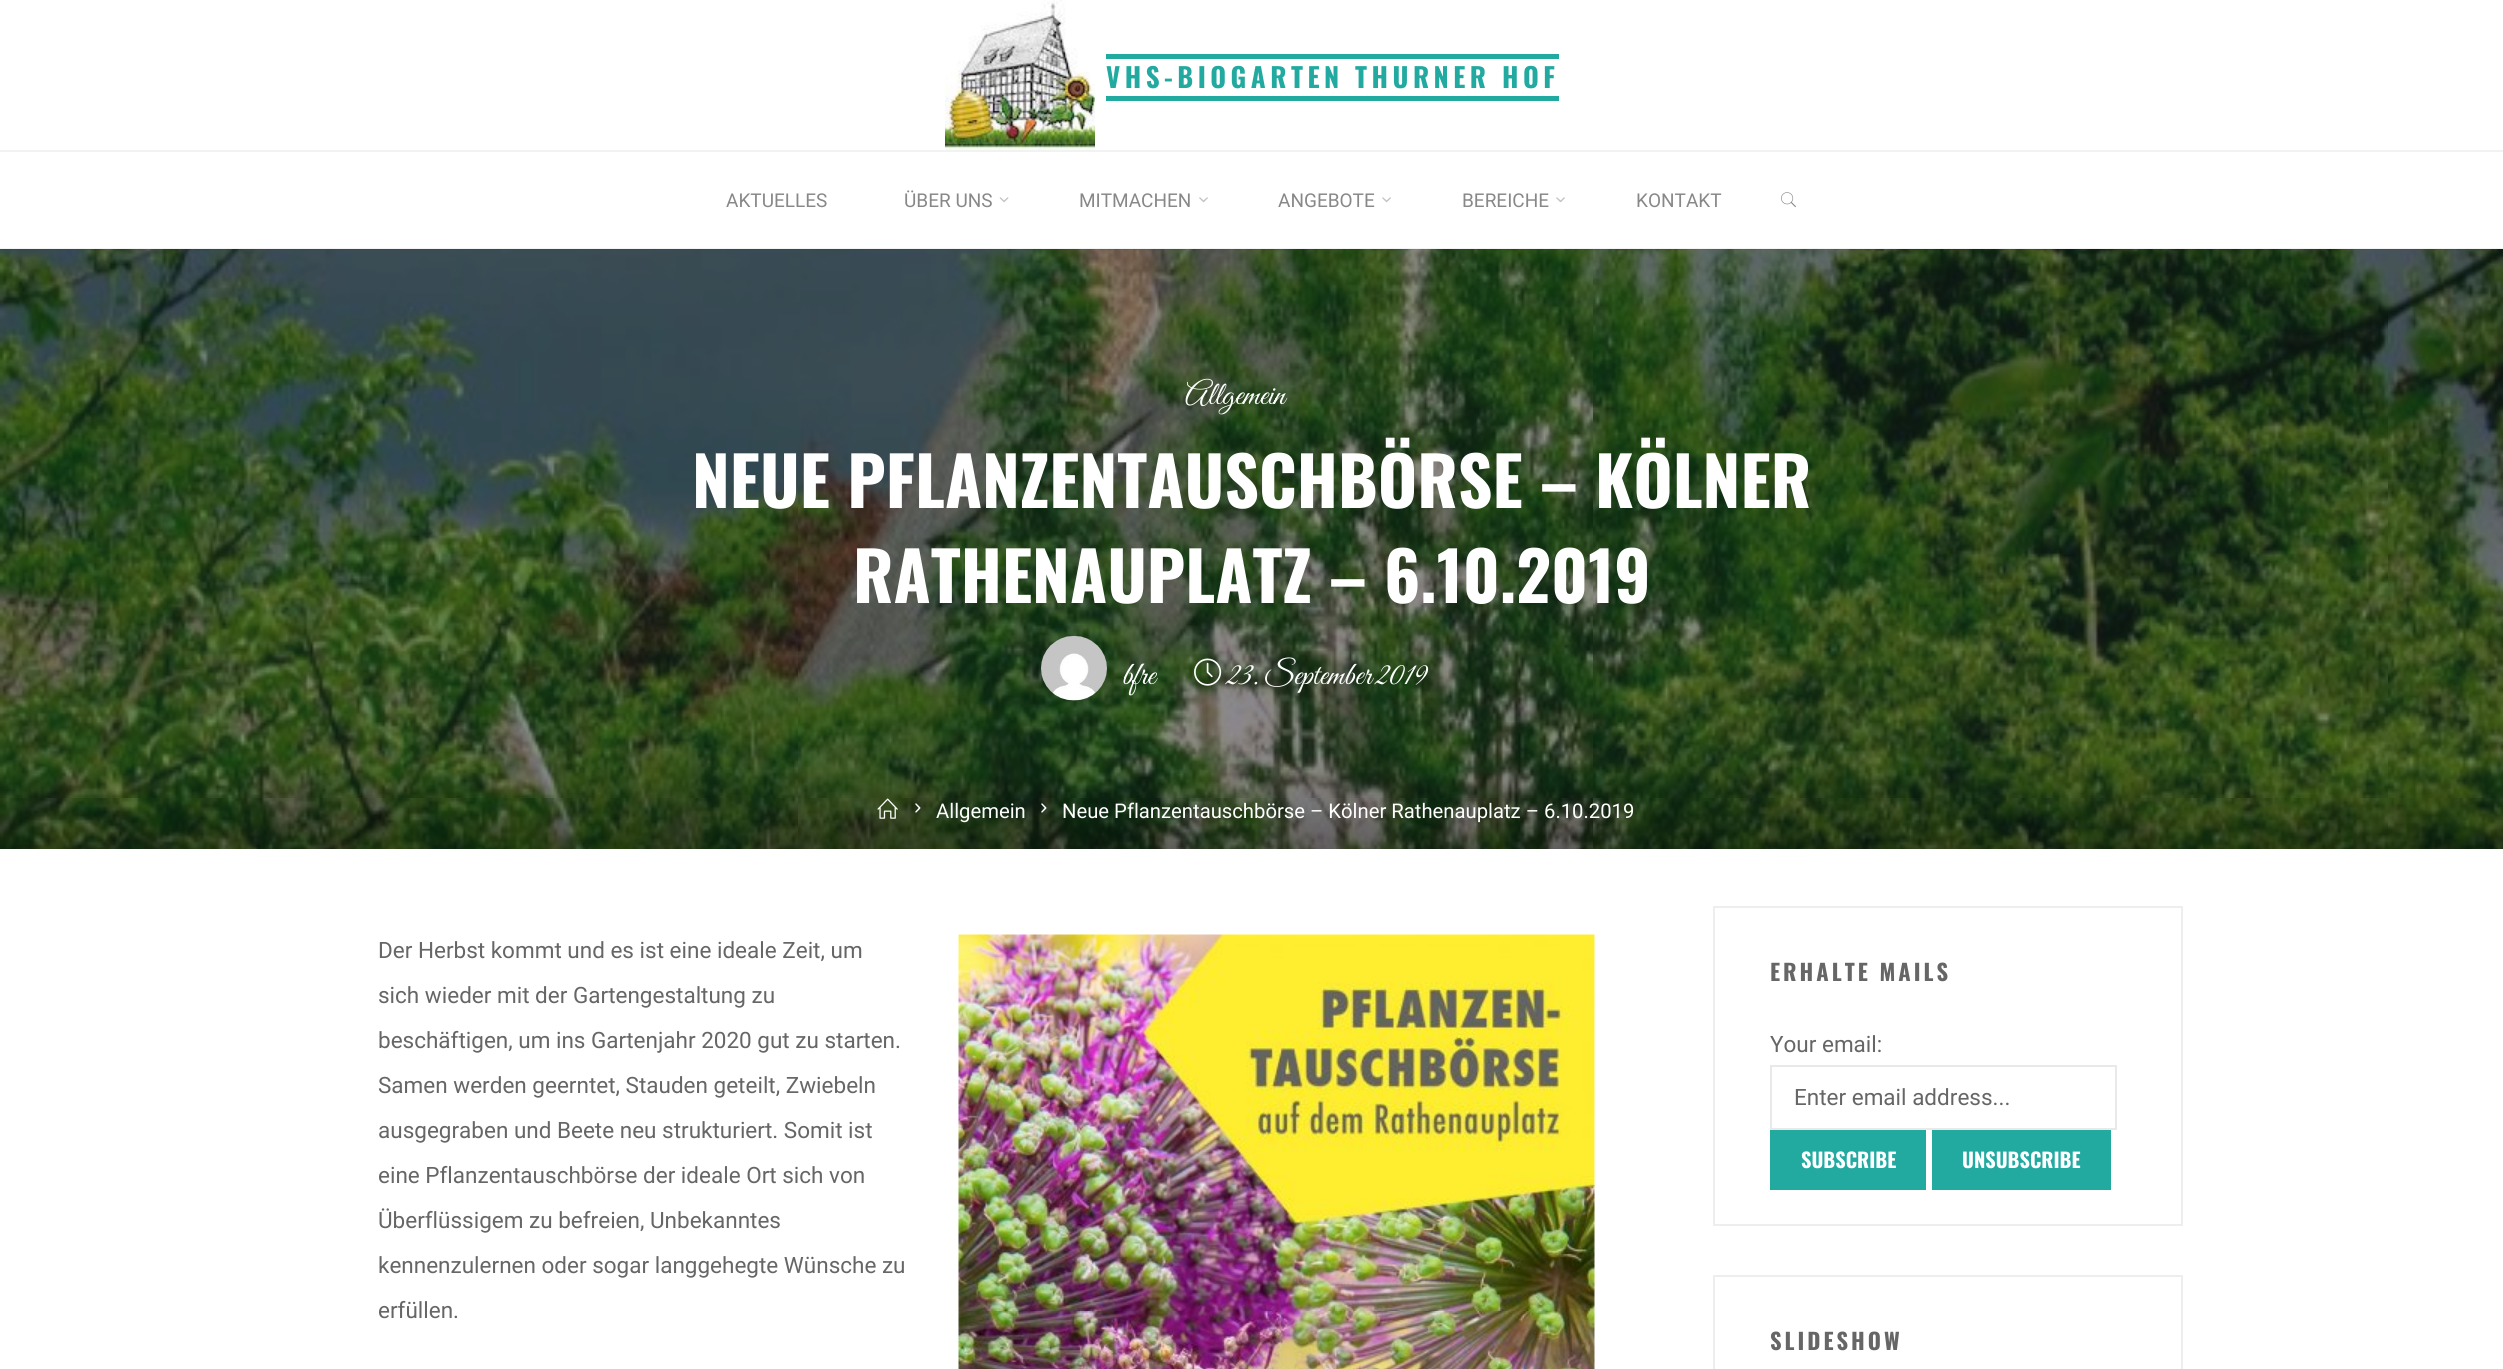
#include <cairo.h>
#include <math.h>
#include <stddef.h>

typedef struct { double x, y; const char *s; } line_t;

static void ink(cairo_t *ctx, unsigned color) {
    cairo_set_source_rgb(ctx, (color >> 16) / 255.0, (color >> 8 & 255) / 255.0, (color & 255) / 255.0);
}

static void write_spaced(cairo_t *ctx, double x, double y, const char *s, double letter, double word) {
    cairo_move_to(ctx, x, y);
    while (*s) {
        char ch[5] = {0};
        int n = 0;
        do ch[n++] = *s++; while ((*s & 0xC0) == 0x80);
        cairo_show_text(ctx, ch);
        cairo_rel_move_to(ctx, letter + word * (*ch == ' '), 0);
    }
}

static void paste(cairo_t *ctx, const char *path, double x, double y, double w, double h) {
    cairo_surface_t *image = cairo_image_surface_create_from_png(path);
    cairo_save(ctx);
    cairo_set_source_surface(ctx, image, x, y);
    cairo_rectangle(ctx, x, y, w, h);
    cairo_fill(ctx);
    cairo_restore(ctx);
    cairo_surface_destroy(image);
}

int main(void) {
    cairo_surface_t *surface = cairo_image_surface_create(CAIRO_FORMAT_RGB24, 2503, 1369);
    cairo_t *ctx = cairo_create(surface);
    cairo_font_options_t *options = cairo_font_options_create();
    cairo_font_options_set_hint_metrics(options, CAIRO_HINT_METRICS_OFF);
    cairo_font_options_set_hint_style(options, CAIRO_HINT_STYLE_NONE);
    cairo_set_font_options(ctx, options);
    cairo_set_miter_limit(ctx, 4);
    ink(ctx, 0xFFFFFF);
    cairo_paint(ctx);
    paste(ctx, "media/1.png", 945, 0, 150, 150);
    ink(ctx, 0x22AAA1);
    cairo_rectangle(ctx, 1106, 54, 453, 5);
    cairo_fill(ctx);
    cairo_select_font_face(ctx, "Oswald", CAIRO_FONT_SLANT_NORMAL, CAIRO_FONT_WEIGHT_BOLD);
    cairo_set_font_size(ctx, 27);
    write_spaced(ctx, 1106, 88, "VHS-BIOGARTEN THURNER HOF", 4.5, 0);
    cairo_rectangle(ctx, 1106, 96, 453, 5);
    cairo_fill(ctx);
    ink(ctx, 0xF2F2F2);
    cairo_rectangle(ctx, 0, 150, 2503, 2);
    cairo_fill(ctx);
    paste(ctx, "media/5.png", 0, 249, 2503, 600);
    cairo_set_source_rgba(ctx, 0, 0, 0, 0.05);
    cairo_rectangle(ctx, 0, 248, 2503, 2);
    cairo_fill(ctx);
    cairo_select_font_face(ctx, "Roboto", CAIRO_FONT_SLANT_NORMAL, CAIRO_FONT_WEIGHT_NORMAL);
    cairo_set_font_size(ctx, 19);
    ink(ctx, 0x888888);
    cairo_move_to(ctx, 726, 207);
    cairo_show_text(ctx, "AKTUELLES");
    cairo_move_to(ctx, 904, 207);
    cairo_show_text(ctx, "ÜBER UNS");
    paste(ctx, "media/2.png", 999, 197, 10, 6);
    cairo_move_to(ctx, 1079, 207);
    cairo_show_text(ctx, "MITMACHEN");
    paste(ctx, "media/3.png", 1199, 197, 9, 6);
    cairo_move_to(ctx, 1278, 207);
    cairo_show_text(ctx, "ANGEBOTE");
    paste(ctx, "media/3.png", 1382, 197, 9, 6);
    cairo_move_to(ctx, 1462, 207);
    cairo_show_text(ctx, "BEREICHE");
    paste(ctx, "media/3.png", 1556, 197, 9, 6);
    cairo_move_to(ctx, 1636, 207);
    cairo_show_text(ctx, "KONTAKT");
    paste(ctx, "media/4.png", 1781, 192, 15, 16);
    cairo_select_font_face(ctx, "Great Vibes", CAIRO_FONT_SLANT_NORMAL, CAIRO_FONT_WEIGHT_NORMAL);
    cairo_set_font_size(ctx, 32.5);
    ink(ctx, 0xFFFFFF);
    cairo_move_to(ctx, 1185, 404);
    cairo_show_text(ctx, "Allgemein");
    cairo_select_font_face(ctx, "Oswald", CAIRO_FONT_SLANT_NORMAL, CAIRO_FONT_WEIGHT_BOLD);
    cairo_set_font_size(ctx, 67.5);
    cairo_move_to(ctx, 692, 508);
    cairo_show_text(ctx, "NEUE PFLANZENTAUSCHBÖRSE – KÖLNER");
    cairo_move_to(ctx, 853, 603);
    cairo_show_text(ctx, "RATHENAUPLATZ – 6.10.2019");
    paste(ctx, "media/6.png", 1041, 636, 66, 65);
    cairo_select_font_face(ctx, "Great Vibes", CAIRO_FONT_SLANT_NORMAL, CAIRO_FONT_WEIGHT_NORMAL);
    cairo_set_font_size(ctx, 32.5);
    cairo_move_to(ctx, 1122, 684);
    cairo_show_text(ctx, "bfre");
    paste(ctx, "media/7.png", 1194, 658, 28, 28);
    write_spaced(ctx, 1227, 684, "23. September 2019", 0, -1);
    paste(ctx, "media/8.png", 877, 798, 21, 21);
    paste(ctx, "media/9.png", 915, 803, 6, 10);
    cairo_select_font_face(ctx, "Roboto", CAIRO_FONT_SLANT_NORMAL, CAIRO_FONT_WEIGHT_NORMAL);
    cairo_set_font_size(ctx, 20.25);
    cairo_move_to(ctx, 936, 818);
    cairo_show_text(ctx, "Allgemein");
    paste(ctx, "media/10.png", 1041, 803, 6, 10);
    cairo_move_to(ctx, 1062, 818);
    cairo_show_text(ctx, "Neue Pflanzentauschbörse – Kölner Rathenauplatz – 6.10.2019");
    cairo_set_font_size(ctx, 22.5);
    ink(ctx, 0x666666);
    {
        static const line_t items[] = {
            {378, 958, "Der Herbst kommt und es ist eine ideale Zeit, um"},
            {378, 1003, "sich wieder mit der Gartengestaltung zu"},
            {378, 1048, "beschäftigen, um ins Gartenjahr 2020 gut zu starten."},
            {378, 1093, "Samen werden geerntet, Stauden geteilt, Zwiebeln"},
            {378, 1138, "ausgegraben und Beete neu strukturiert. Somit ist"},
            {378, 1183, "eine Pflanzentauschbörse der ideale Ort sich von"},
            {378, 1228, "Überflüssigem zu befreien, Unbekanntes"},
            {378, 1273, "kennenzulernen oder sogar langgehegte Wünsche zu"},
            {378, 1318, "erfüllen."},
        };
        for (size_t i = 0; i < sizeof items / sizeof *items; i++) {
            cairo_move_to(ctx, items[i].x, items[i].y);
            cairo_show_text(ctx, items[i].s);
        }
    }
    paste(ctx, "media/11.png", 958, 934, 637, 435);
    cairo_rectangle(ctx, 1714, 907, 468, 318);
    ink(ctx, 0xEEEEEE);
    cairo_stroke(ctx);
    cairo_select_font_face(ctx, "Oswald", CAIRO_FONT_SLANT_NORMAL, CAIRO_FONT_WEIGHT_BOLD);
    ink(ctx, 0x666666);
    write_spaced(ctx, 1770, 981, "ERHALTE MAILS", 3, 0);
    cairo_select_font_face(ctx, "Roboto", CAIRO_FONT_SLANT_NORMAL, CAIRO_FONT_WEIGHT_NORMAL);
    cairo_move_to(ctx, 1770, 1052);
    cairo_show_text(ctx, "Your email:");
    cairo_rectangle(ctx, 1771, 1066, 345, 63);
    ink(ctx, 0xE9E9E9);
    cairo_stroke(ctx);
    ink(ctx, 0x666666);
    cairo_move_to(ctx, 1794, 1105);
    cairo_show_text(ctx, "Enter email address...");
    ink(ctx, 0x22AAA1);
    cairo_rectangle(ctx, 1770, 1130, 156, 60);
    cairo_fill(ctx);
    cairo_select_font_face(ctx, "Oswald", CAIRO_FONT_SLANT_NORMAL, CAIRO_FONT_WEIGHT_BOLD);
    cairo_set_font_size(ctx, 20.25);
    ink(ctx, 0xFFFFFF);
    cairo_move_to(ctx, 1801, 1168);
    cairo_show_text(ctx, "SUBSCRIBE");
    ink(ctx, 0x22AAA1);
    cairo_rectangle(ctx, 1932, 1130, 179, 60);
    cairo_fill(ctx);
    ink(ctx, 0xFFFFFF);
    cairo_move_to(ctx, 1962, 1168);
    cairo_show_text(ctx, "UNSUBSCRIBE");
    cairo_rectangle(ctx, 1714, 1276, 468, 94);
    ink(ctx, 0xEEEEEE);
    cairo_stroke(ctx);
    cairo_set_font_size(ctx, 22.5);
    ink(ctx, 0x666666);
    write_spaced(ctx, 1770, 1350, "SLIDESHOW", 3, 0);
    cairo_surface_write_to_png(surface, "image.png");
    cairo_font_options_destroy(options);
    cairo_destroy(ctx);
    cairo_surface_destroy(surface);
    return 0;
}
